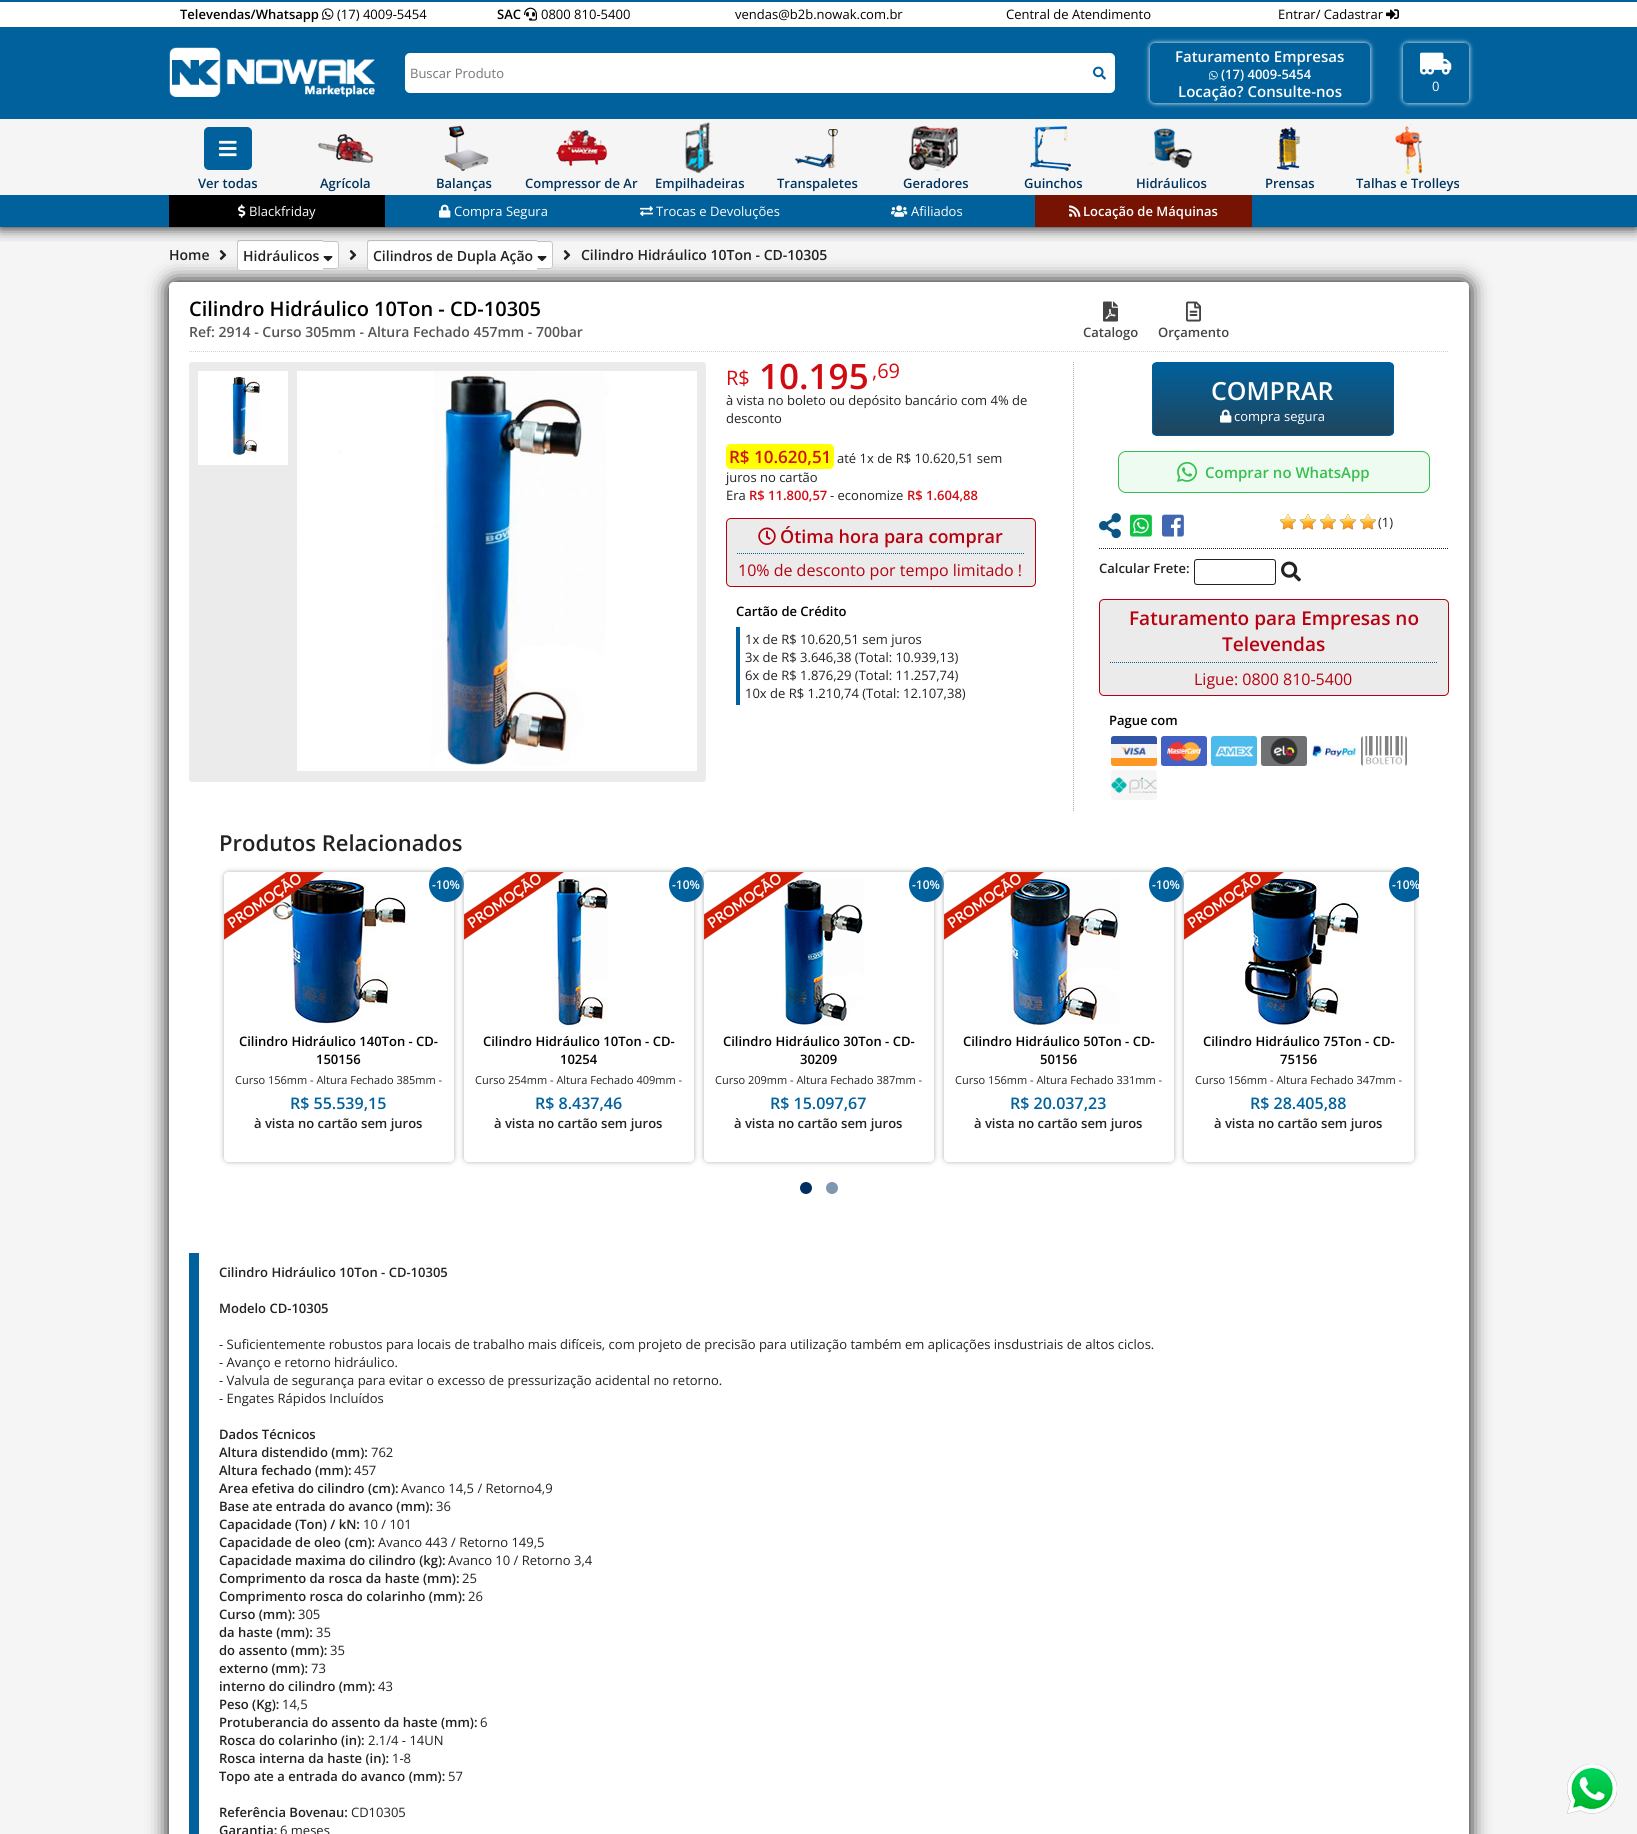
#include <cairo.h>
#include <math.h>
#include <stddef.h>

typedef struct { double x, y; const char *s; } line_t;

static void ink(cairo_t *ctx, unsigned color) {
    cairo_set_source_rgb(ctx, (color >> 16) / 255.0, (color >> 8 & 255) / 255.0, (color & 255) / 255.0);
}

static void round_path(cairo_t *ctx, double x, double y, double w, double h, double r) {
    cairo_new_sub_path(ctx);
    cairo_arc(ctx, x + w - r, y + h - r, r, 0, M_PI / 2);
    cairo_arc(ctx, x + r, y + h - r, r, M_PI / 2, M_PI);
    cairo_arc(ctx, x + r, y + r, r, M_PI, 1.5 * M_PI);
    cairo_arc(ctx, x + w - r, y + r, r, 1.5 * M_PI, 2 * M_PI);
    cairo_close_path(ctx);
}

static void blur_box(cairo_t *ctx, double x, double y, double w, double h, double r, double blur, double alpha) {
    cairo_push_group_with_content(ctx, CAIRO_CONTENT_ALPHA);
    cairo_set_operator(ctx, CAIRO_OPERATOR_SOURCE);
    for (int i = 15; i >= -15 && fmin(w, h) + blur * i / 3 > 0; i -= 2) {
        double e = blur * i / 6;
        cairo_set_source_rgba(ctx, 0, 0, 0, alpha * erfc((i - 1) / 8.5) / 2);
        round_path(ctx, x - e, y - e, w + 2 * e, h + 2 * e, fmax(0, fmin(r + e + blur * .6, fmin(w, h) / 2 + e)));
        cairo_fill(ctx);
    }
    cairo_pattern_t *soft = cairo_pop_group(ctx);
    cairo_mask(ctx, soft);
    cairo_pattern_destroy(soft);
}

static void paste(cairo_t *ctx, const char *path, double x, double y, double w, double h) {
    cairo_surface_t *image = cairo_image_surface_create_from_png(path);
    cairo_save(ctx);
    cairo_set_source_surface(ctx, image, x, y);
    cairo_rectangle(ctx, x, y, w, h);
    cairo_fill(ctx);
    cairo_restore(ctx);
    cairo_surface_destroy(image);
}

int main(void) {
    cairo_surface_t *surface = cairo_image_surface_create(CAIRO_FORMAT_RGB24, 1637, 1834);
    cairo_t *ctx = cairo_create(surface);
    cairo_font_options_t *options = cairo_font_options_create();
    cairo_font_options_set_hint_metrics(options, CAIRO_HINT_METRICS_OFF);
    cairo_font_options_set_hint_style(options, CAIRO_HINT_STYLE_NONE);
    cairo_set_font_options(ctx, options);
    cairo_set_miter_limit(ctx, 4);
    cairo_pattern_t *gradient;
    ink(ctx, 0xFFFFFF);
    cairo_paint(ctx);
    ink(ctx, 0xF5F5F5);
    cairo_rectangle(ctx, 0, 227, 1637, 1607);
    cairo_fill(ctx);
    ink(ctx, 0x000000);
    blur_box(ctx, 169, 282, 1300, 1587, 5, 10, 1);
    paste(ctx, "media/24.png", 219, 250, 8, 10);
    ink(ctx, 0xFFFFFF);
    cairo_new_path(ctx);
    cairo_move_to(ctx, 240, 240);
    cairo_line_to(ctx, 323, 240);
    cairo_line_to(ctx, 323, 271);
    cairo_line_to(ctx, 240, 271);
    cairo_curve_to(ctx, 238.5, 271, 237, 269.5, 237, 268);
    cairo_line_to(ctx, 237, 243);
    cairo_curve_to(ctx, 237, 241.5, 238.5, 240, 240, 240);
    cairo_close_path(ctx);
    cairo_fill(ctx);
    ink(ctx, 0xC6C6C6);
    cairo_set_fill_rule(ctx, CAIRO_FILL_RULE_EVEN_ODD);
    cairo_new_path(ctx);
    cairo_move_to(ctx, 240, 240);
    cairo_line_to(ctx, 323, 240);
    cairo_line_to(ctx, 323, 271);
    cairo_line_to(ctx, 240, 271);
    cairo_curve_to(ctx, 238, 271, 237, 270, 237, 268);
    cairo_line_to(ctx, 237, 243);
    cairo_curve_to(ctx, 237, 241, 238, 240, 240, 240);
    cairo_close_path(ctx);
    cairo_move_to(ctx, 240, 241);
    cairo_line_to(ctx, 323, 241);
    cairo_line_to(ctx, 323, 270);
    cairo_line_to(ctx, 240, 270);
    cairo_curve_to(ctx, 239, 270, 238, 269, 238, 268);
    cairo_line_to(ctx, 238, 243);
    cairo_curve_to(ctx, 238, 242, 239, 241, 240, 241);
    cairo_close_path(ctx);
    cairo_fill(ctx);
    ink(ctx, 0xFFFFFF);
    cairo_new_path(ctx);
    cairo_move_to(ctx, 323, 241);
    cairo_line_to(ctx, 336, 241);
    cairo_curve_to(ctx, 337.5, 241, 339, 242.5, 339, 244);
    cairo_line_to(ctx, 339, 266);
    cairo_curve_to(ctx, 339, 267.5, 337.5, 269, 336, 269);
    cairo_line_to(ctx, 323, 269);
    cairo_close_path(ctx);
    cairo_fill(ctx);
    ink(ctx, 0xC6C6C6);
    cairo_new_path(ctx);
    cairo_move_to(ctx, 323, 241);
    cairo_line_to(ctx, 336, 241);
    cairo_curve_to(ctx, 337.5, 241, 339, 242.5, 339, 244);
    cairo_line_to(ctx, 339, 266);
    cairo_curve_to(ctx, 339, 267.5, 337.5, 269, 336, 269);
    cairo_line_to(ctx, 323, 269);
    cairo_close_path(ctx);
    cairo_move_to(ctx, 323, 242);
    cairo_line_to(ctx, 336, 242);
    cairo_curve_to(ctx, 337, 242, 338, 243, 338, 244);
    cairo_line_to(ctx, 338, 266);
    cairo_curve_to(ctx, 338, 267, 337, 268, 336, 268);
    cairo_line_to(ctx, 323, 268);
    cairo_close_path(ctx);
    cairo_fill(ctx);
    paste(ctx, "media/24.png", 349, 250, 8, 10);
    ink(ctx, 0xFFFFFF);
    cairo_new_path(ctx);
    cairo_move_to(ctx, 370, 240);
    cairo_line_to(ctx, 537, 240);
    cairo_line_to(ctx, 537, 271);
    cairo_line_to(ctx, 370, 271);
    cairo_curve_to(ctx, 368.5, 271, 367, 269.5, 367, 268);
    cairo_line_to(ctx, 367, 243);
    cairo_curve_to(ctx, 367, 241.5, 368.5, 240, 370, 240);
    cairo_close_path(ctx);
    cairo_fill(ctx);
    ink(ctx, 0xC6C6C6);
    cairo_new_path(ctx);
    cairo_move_to(ctx, 370, 240);
    cairo_line_to(ctx, 537, 240);
    cairo_line_to(ctx, 537, 271);
    cairo_line_to(ctx, 370, 271);
    cairo_curve_to(ctx, 368, 271, 367, 270, 367, 268);
    cairo_line_to(ctx, 367, 243);
    cairo_curve_to(ctx, 367, 241, 368, 240, 370, 240);
    cairo_close_path(ctx);
    cairo_move_to(ctx, 370, 241);
    cairo_line_to(ctx, 537, 241);
    cairo_line_to(ctx, 537, 270);
    cairo_line_to(ctx, 370, 270);
    cairo_curve_to(ctx, 369, 270, 368, 269, 368, 268);
    cairo_line_to(ctx, 368, 243);
    cairo_curve_to(ctx, 368, 242, 369, 241, 370, 241);
    cairo_close_path(ctx);
    cairo_fill(ctx);
    ink(ctx, 0xFFFFFF);
    cairo_new_path(ctx);
    cairo_move_to(ctx, 537, 241);
    cairo_line_to(ctx, 550, 241);
    cairo_curve_to(ctx, 551.5, 241, 553, 242.5, 553, 244);
    cairo_line_to(ctx, 553, 266);
    cairo_curve_to(ctx, 553, 267.5, 551.5, 269, 550, 269);
    cairo_line_to(ctx, 537, 269);
    cairo_close_path(ctx);
    cairo_fill(ctx);
    ink(ctx, 0xC6C6C6);
    cairo_new_path(ctx);
    cairo_move_to(ctx, 537, 241);
    cairo_line_to(ctx, 550, 241);
    cairo_curve_to(ctx, 551.5, 241, 553, 242.5, 553, 244);
    cairo_line_to(ctx, 553, 266);
    cairo_curve_to(ctx, 553, 267.5, 551.5, 269, 550, 269);
    cairo_line_to(ctx, 537, 269);
    cairo_close_path(ctx);
    cairo_move_to(ctx, 537, 242);
    cairo_line_to(ctx, 550, 242);
    cairo_curve_to(ctx, 551, 242, 552, 243, 552, 244);
    cairo_line_to(ctx, 552, 266);
    cairo_curve_to(ctx, 552, 267, 551, 268, 550, 268);
    cairo_line_to(ctx, 537, 268);
    cairo_close_path(ctx);
    cairo_fill(ctx);
    paste(ctx, "media/24.png", 563, 250, 8, 10);
    cairo_save(ctx);
    cairo_set_fill_rule(ctx, CAIRO_FILL_RULE_WINDING);
    cairo_rectangle(ctx, 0, 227, 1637, 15);
    cairo_clip(ctx);
    ink(ctx, 0x000000);
    blur_box(ctx, 0, 0, 1637, 227, 0, 7.5, 1);
    cairo_restore(ctx);
    ink(ctx, 0x00619D);
    cairo_rectangle(ctx, 0, 0, 1637, 2);
    cairo_fill(ctx);
    cairo_select_font_face(ctx, "Open Sans SemiBold", CAIRO_FONT_SLANT_NORMAL, CAIRO_FONT_WEIGHT_NORMAL);
    cairo_set_font_size(ctx, 13);
    ink(ctx, 0x000000);
    cairo_move_to(ctx, 180, 19);
    cairo_show_text(ctx, "Televendas/Whatsapp");
    paste(ctx, "media/1.png", 322, 8, 12, 12);
    cairo_select_font_face(ctx, "Open Sans", CAIRO_FONT_SLANT_NORMAL, CAIRO_FONT_WEIGHT_NORMAL);
    cairo_move_to(ctx, 337, 19);
    cairo_show_text(ctx, "(17) 4009-5454");
    cairo_select_font_face(ctx, "Open Sans SemiBold", CAIRO_FONT_SLANT_NORMAL, CAIRO_FONT_WEIGHT_NORMAL);
    cairo_move_to(ctx, 497, 19);
    cairo_show_text(ctx, "SAC");
    paste(ctx, "media/2.png", 524, 7, 13, 14);
    cairo_select_font_face(ctx, "Open Sans", CAIRO_FONT_SLANT_NORMAL, CAIRO_FONT_WEIGHT_NORMAL);
    {
        static const line_t items[] = {
            {541, 19, "0800 810-5400"},
            {735, 19, "vendas@b2b.nowak.com.br"},
            {1006, 19, "Central de Atendimento"},
            {1278, 19, "Entrar/ Cadastrar"},
        };
        for (size_t i = 0; i < sizeof items / sizeof *items; i++) {
            cairo_move_to(ctx, items[i].x, items[i].y);
            cairo_show_text(ctx, items[i].s);
        }
    }
    paste(ctx, "media/3.png", 1386, 9, 13, 11);
    ink(ctx, 0x00619D);
    cairo_rectangle(ctx, 0, 27, 1637, 92);
    cairo_fill(ctx);
    paste(ctx, "media/4.png", 169, 47, 206, 50);
    ink(ctx, 0xFFFFFF);
    round_path(ctx, 405, 53, 710, 40, 5);
    cairo_fill(ctx);
    ink(ctx, 0x757575);
    cairo_move_to(ctx, 410, 78);
    cairo_show_text(ctx, "Buscar Produto");
    paste(ctx, "media/5.png", 1093, 66, 13, 14);
    ink(ctx, 0xFFFFFF);
    blur_box(ctx, 1150, 43, 220, 60, 5, 2.5, 1);
    ink(ctx, 0x00619D);
    round_path(ctx, 1150, 43, 220, 60, 5);
    cairo_fill(ctx);
    cairo_select_font_face(ctx, "Open Sans SemiBold", CAIRO_FONT_SLANT_NORMAL, CAIRO_FONT_WEIGHT_NORMAL);
    cairo_set_font_size(ctx, 15);
    ink(ctx, 0xFFFFFF);
    cairo_move_to(ctx, 1175, 62);
    cairo_show_text(ctx, "Faturamento Empresas");
    paste(ctx, "media/6.png", 1209, 70, 9, 10);
    cairo_set_font_size(ctx, 13);
    cairo_move_to(ctx, 1221, 79);
    cairo_show_text(ctx, "(17) 4009-5454");
    cairo_set_font_size(ctx, 15);
    cairo_move_to(ctx, 1178, 97);
    cairo_show_text(ctx, "Locação? Consulte-nos");
    cairo_save(ctx);
    cairo_new_path(ctx);
    cairo_move_to(ctx, 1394, 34);
    cairo_line_to(ctx, 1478, 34);
    cairo_line_to(ctx, 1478, 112);
    cairo_line_to(ctx, 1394, 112);
    cairo_close_path(ctx);
    cairo_move_to(ctx, 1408, 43);
    cairo_line_to(ctx, 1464, 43);
    cairo_curve_to(ctx, 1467, 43, 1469, 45, 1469, 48);
    cairo_line_to(ctx, 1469, 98);
    cairo_curve_to(ctx, 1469, 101, 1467, 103, 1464, 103);
    cairo_line_to(ctx, 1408, 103);
    cairo_curve_to(ctx, 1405, 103, 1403, 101, 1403, 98);
    cairo_line_to(ctx, 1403, 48);
    cairo_curve_to(ctx, 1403, 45, 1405, 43, 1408, 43);
    cairo_close_path(ctx);
    cairo_clip(ctx);
    ink(ctx, 0xFFFFFF);
    blur_box(ctx, 1403, 43, 66, 60, 5, 2.5, 1);
    cairo_restore(ctx);
    paste(ctx, "media/7.png", 1420, 52, 32, 23);
    cairo_select_font_face(ctx, "Open Sans", CAIRO_FONT_SLANT_NORMAL, CAIRO_FONT_WEIGHT_NORMAL);
    cairo_set_font_size(ctx, 13);
    cairo_move_to(ctx, 1432, 91);
    cairo_show_text(ctx, "0");
    ink(ctx, 0xF5F5F5);
    cairo_rectangle(ctx, 0, 119, 1637, 76);
    cairo_fill(ctx);
    ink(ctx, 0x00619D);
    round_path(ctx, 204, 127, 48, 43, 5);
    cairo_fill(ctx);
    paste(ctx, "media/8.png", 219, 140, 18, 17);
    cairo_select_font_face(ctx, "Open Sans SemiBold", CAIRO_FONT_SLANT_NORMAL, CAIRO_FONT_WEIGHT_NORMAL);
    ink(ctx, 0x00335E);
    cairo_move_to(ctx, 198, 188);
    cairo_show_text(ctx, "Ver todas");
    paste(ctx, "media/9.png", 318, 134, 55, 29);
    cairo_move_to(ctx, 320, 188);
    cairo_show_text(ctx, "Agrícola");
    paste(ctx, "media/10.png", 444, 125, 45, 46);
    cairo_move_to(ctx, 436, 188);
    cairo_show_text(ctx, "Balanças");
    paste(ctx, "media/11.png", 556, 130, 51, 36);
    cairo_move_to(ctx, 525, 188);
    cairo_show_text(ctx, "Compressor de Ar");
    paste(ctx, "media/12.png", 685, 122, 29, 51);
    cairo_move_to(ctx, 655, 188);
    cairo_show_text(ctx, "Empilhadeiras");
    paste(ctx, "media/13.png", 795, 129, 44, 40);
    cairo_move_to(ctx, 777, 188);
    cairo_show_text(ctx, "Transpaletes");
    paste(ctx, "media/14.png", 909, 126, 49, 46);
    cairo_move_to(ctx, 903, 188);
    cairo_show_text(ctx, "Geradores");
    paste(ctx, "media/15.png", 1030, 126, 41, 45);
    cairo_move_to(ctx, 1024, 188);
    cairo_show_text(ctx, "Guinchos");
    paste(ctx, "media/16.png", 1149, 128, 44, 40);
    cairo_move_to(ctx, 1136, 188);
    cairo_show_text(ctx, "Hidráulicos");
    paste(ctx, "media/17.png", 1277, 127, 23, 43);
    cairo_move_to(ctx, 1265, 188);
    cairo_show_text(ctx, "Prensas");
    paste(ctx, "media/18.png", 1395, 124, 27, 50);
    cairo_move_to(ctx, 1356, 188);
    cairo_show_text(ctx, "Talhas e Trolleys");
    ink(ctx, 0x00619D);
    cairo_rectangle(ctx, 0, 195, 1637, 32);
    cairo_fill(ctx);
    ink(ctx, 0x000000);
    cairo_rectangle(ctx, 169, 195, 216, 32);
    cairo_fill(ctx);
    paste(ctx, "media/19.png", 238, 204, 8, 14);
    cairo_select_font_face(ctx, "Open Sans", CAIRO_FONT_SLANT_NORMAL, CAIRO_FONT_WEIGHT_NORMAL);
    ink(ctx, 0xFFFFFF);
    cairo_move_to(ctx, 249, 216);
    cairo_show_text(ctx, "Blackfriday");
    paste(ctx, "media/20.png", 439, 204, 12, 14);
    cairo_move_to(ctx, 454, 216);
    cairo_show_text(ctx, "Compra Segura");
    paste(ctx, "media/21.png", 640, 206, 13, 11);
    cairo_move_to(ctx, 656, 216);
    cairo_show_text(ctx, "Trocas e Devoluções");
    paste(ctx, "media/22.png", 891, 205, 17, 12);
    cairo_move_to(ctx, 911, 216);
    cairo_show_text(ctx, "Afiliados");
    ink(ctx, 0x771303);
    cairo_rectangle(ctx, 1035, 195, 217, 32);
    cairo_fill(ctx);
    paste(ctx, "media/23.png", 1069, 205, 12, 12);
    cairo_select_font_face(ctx, "Open Sans SemiBold", CAIRO_FONT_SLANT_NORMAL, CAIRO_FONT_WEIGHT_NORMAL);
    ink(ctx, 0xFFFFFF);
    cairo_move_to(ctx, 1083, 216);
    cairo_show_text(ctx, "Locação de Máquinas");
    cairo_set_font_size(ctx, 14);
    ink(ctx, 0x222222);
    cairo_move_to(ctx, 169, 260);
    cairo_show_text(ctx, "Home");
    cairo_move_to(ctx, 243, 261);
    cairo_show_text(ctx, "Hidráulicos");
    paste(ctx, "media/25.png", 323, 256, 10, 6);
    cairo_move_to(ctx, 373, 261);
    cairo_show_text(ctx, "Cilindros de Dupla Ação");
    paste(ctx, "media/25.png", 537, 256, 10, 6);
    cairo_move_to(ctx, 581, 260);
    cairo_show_text(ctx, "Cilindro Hidráulico 10Ton - CD-10305");
    ink(ctx, 0xFFFFFF);
    cairo_new_path(ctx);
    cairo_move_to(ctx, 174, 282);
    cairo_line_to(ctx, 1464, 282);
    cairo_curve_to(ctx, 1467, 282, 1469, 284, 1469, 287);
    cairo_line_to(ctx, 1469, 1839);
    cairo_line_to(ctx, 169, 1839);
    cairo_line_to(ctx, 169, 287);
    cairo_curve_to(ctx, 169, 284, 171, 282, 174, 282);
    cairo_close_path(ctx);
    cairo_fill(ctx);
    cairo_new_path(ctx);
    cairo_move_to(ctx, 189, 351.5);
    cairo_line_to(ctx, 1449, 351.5);
    ink(ctx, 0xD2D2D2);
    cairo_set_line_width(ctx, 1);
    cairo_set_dash(ctx, (double[]){1, 1}, 2, 0);
    cairo_stroke(ctx);
    cairo_set_font_size(ctx, 20);
    ink(ctx, 0x000000);
    cairo_move_to(ctx, 189, 316);
    cairo_show_text(ctx, "Cilindro Hidráulico 10Ton - CD-10305");
    cairo_set_font_size(ctx, 14);
    ink(ctx, 0x555555);
    cairo_move_to(ctx, 189, 337);
    cairo_show_text(ctx, "Ref: 2914 - Curso 305mm - Altura Fechado 457mm - 700bar");
    paste(ctx, "media/26.png", 1103, 301, 15, 21);
    cairo_set_font_size(ctx, 13);
    ink(ctx, 0x444444);
    cairo_move_to(ctx, 1083, 337);
    cairo_show_text(ctx, "Catalogo");
    paste(ctx, "media/27.png", 1186, 301, 15, 21);
    cairo_move_to(ctx, 1158, 337);
    cairo_show_text(ctx, "Orçamento");
    ink(ctx, 0xEBEBEB);
    round_path(ctx, 189, 362, 517, 420, 3);
    cairo_fill(ctx);
    ink(ctx, 0xFFFFFF);
    cairo_rectangle(ctx, 198, 371, 90, 94);
    cairo_fill(ctx);
    paste(ctx, "media/28.png", 232, 376, 28, 79);
    paste(ctx, "media/29.png", 297, 371, 400, 400);
    cairo_select_font_face(ctx, "Open Sans", CAIRO_FONT_SLANT_NORMAL, CAIRO_FONT_WEIGHT_NORMAL);
    cairo_set_font_size(ctx, 20);
    ink(ctx, 0xD00C12);
    cairo_move_to(ctx, 726, 385);
    cairo_show_text(ctx, "R$");
    cairo_select_font_face(ctx, "Open Sans SemiBold", CAIRO_FONT_SLANT_NORMAL, CAIRO_FONT_WEIGHT_NORMAL);
    cairo_set_font_size(ctx, 35);
    cairo_move_to(ctx, 759, 389);
    cairo_show_text(ctx, "10.195");
    cairo_select_font_face(ctx, "Open Sans", CAIRO_FONT_SLANT_NORMAL, CAIRO_FONT_WEIGHT_NORMAL);
    cairo_set_font_size(ctx, 20);
    cairo_move_to(ctx, 872, 378);
    cairo_show_text(ctx, ",69");
    cairo_set_font_size(ctx, 13);
    ink(ctx, 0x222222);
    cairo_move_to(ctx, 726, 405);
    cairo_show_text(ctx, "à vista no boleto ou depósito bancário com 4% de");
    cairo_move_to(ctx, 726, 423);
    cairo_show_text(ctx, "desconto");
    ink(ctx, 0xFFFF00);
    round_path(ctx, 726, 444, 108, 25, 5);
    cairo_fill(ctx);
    cairo_select_font_face(ctx, "Open Sans SemiBold", CAIRO_FONT_SLANT_NORMAL, CAIRO_FONT_WEIGHT_NORMAL);
    cairo_set_font_size(ctx, 17);
    ink(ctx, 0xD11212);
    cairo_move_to(ctx, 729, 463);
    cairo_show_text(ctx, "R$ 10.620,51");
    cairo_select_font_face(ctx, "Open Sans", CAIRO_FONT_SLANT_NORMAL, CAIRO_FONT_WEIGHT_NORMAL);
    cairo_set_font_size(ctx, 13);
    ink(ctx, 0x222222);
    {
        static const line_t items[] = {
            {837, 463, "até 1x de R$ 10.620,51 sem"},
            {726, 482, "juros no cartão"},
            {726, 500, "Era"},
        };
        for (size_t i = 0; i < sizeof items / sizeof *items; i++) {
            cairo_move_to(ctx, items[i].x, items[i].y);
            cairo_show_text(ctx, items[i].s);
        }
    }
    cairo_select_font_face(ctx, "Open Sans SemiBold", CAIRO_FONT_SLANT_NORMAL, CAIRO_FONT_WEIGHT_NORMAL);
    ink(ctx, 0xD00C12);
    cairo_move_to(ctx, 749, 500);
    cairo_show_text(ctx, "R$ 11.800,57");
    cairo_select_font_face(ctx, "Open Sans", CAIRO_FONT_SLANT_NORMAL, CAIRO_FONT_WEIGHT_NORMAL);
    ink(ctx, 0x222222);
    cairo_move_to(ctx, 830, 500);
    cairo_show_text(ctx, "- economize");
    cairo_select_font_face(ctx, "Open Sans SemiBold", CAIRO_FONT_SLANT_NORMAL, CAIRO_FONT_WEIGHT_NORMAL);
    ink(ctx, 0xD00C12);
    cairo_move_to(ctx, 907, 500);
    cairo_show_text(ctx, "R$ 1.604,88");
    ink(ctx, 0xEBEBEB);
    round_path(ctx, 726.5, 518.5, 309, 68, 4.5);
    cairo_fill_preserve(ctx);
    ink(ctx, 0xB70110);
    cairo_set_dash(ctx, NULL, 0, 0);
    cairo_stroke(ctx);
    cairo_new_path(ctx);
    cairo_move_to(ctx, 737, 553.5);
    cairo_line_to(ctx, 1025, 553.5);
    ink(ctx, 0x00619D);
    cairo_set_dash(ctx, (double[]){1, 1}, 2, 0);
    cairo_stroke(ctx);
    paste(ctx, "media/30.png", 758, 527, 18, 18);
    cairo_set_font_size(ctx, 18);
    ink(ctx, 0xB70110);
    cairo_move_to(ctx, 780, 543);
    cairo_show_text(ctx, "Ótima hora para comprar");
    cairo_select_font_face(ctx, "Open Sans", CAIRO_FONT_SLANT_NORMAL, CAIRO_FONT_WEIGHT_NORMAL);
    cairo_set_font_size(ctx, 16);
    cairo_move_to(ctx, 738, 576);
    cairo_show_text(ctx, "10% de desconto por tempo limitado !");
    cairo_select_font_face(ctx, "Open Sans SemiBold", CAIRO_FONT_SLANT_NORMAL, CAIRO_FONT_WEIGHT_NORMAL);
    cairo_set_font_size(ctx, 13);
    ink(ctx, 0x000000);
    cairo_move_to(ctx, 736, 616);
    cairo_show_text(ctx, "Cartão de Crédito");
    ink(ctx, 0x00619D);
    cairo_rectangle(ctx, 736, 627, 4, 78);
    cairo_fill(ctx);
    cairo_select_font_face(ctx, "Open Sans", CAIRO_FONT_SLANT_NORMAL, CAIRO_FONT_WEIGHT_NORMAL);
    ink(ctx, 0x222222);
    {
        static const line_t items[] = {
            {745, 644, "1x de R$ 10.620,51 sem juros"},
            {745, 662, "3x de R$ 3.646,38 (Total: 10.939,13)"},
            {745, 680, "6x de R$ 1.876,29 (Total: 11.257,74)"},
            {745, 698, "10x de R$ 1.210,74 (Total: 12.107,38)"},
        };
        for (size_t i = 0; i < sizeof items / sizeof *items; i++) {
            cairo_move_to(ctx, items[i].x, items[i].y);
            cairo_show_text(ctx, items[i].s);
        }
    }
    cairo_new_path(ctx);
    cairo_move_to(ctx, 1073.5, 362);
    cairo_line_to(ctx, 1073.5, 812);
    ink(ctx, 0xAEAEAE);
    cairo_stroke(ctx);
    cairo_save(ctx);
    cairo_set_fill_rule(ctx, CAIRO_FILL_RULE_WINDING);
    round_path(ctx, 1152, 362, 242, 74, 5);
    cairo_clip(ctx);
    gradient = cairo_pattern_create_linear(1273, 363, 1273, 435);
    cairo_pattern_add_color_stop_rgba(gradient, 0, 0, 0.38, 0.616, 1);
    cairo_pattern_add_color_stop_rgba(gradient, 1, 0.125, 0.271, 0.361, 1);
    cairo_set_source(ctx, gradient);
    cairo_pattern_destroy(gradient);
    cairo_rectangle(ctx, 1152, 363, 242, 72);
    cairo_fill(ctx);
    cairo_restore(ctx);
    round_path(ctx, 1152.5, 362.5, 241, 73, 4.5);
    ink(ctx, 0x005F9A);
    cairo_set_dash(ctx, NULL, 0, 0);
    cairo_stroke(ctx);
    cairo_select_font_face(ctx, "Open Sans SemiBold", CAIRO_FONT_SLANT_NORMAL, CAIRO_FONT_WEIGHT_NORMAL);
    cairo_set_font_size(ctx, 25);
    ink(ctx, 0xFFFFFF);
    cairo_move_to(ctx, 1211, 400);
    cairo_show_text(ctx, "COMPRAR");
    paste(ctx, "media/31.png", 1220, 409, 12, 14);
    cairo_select_font_face(ctx, "Open Sans", CAIRO_FONT_SLANT_NORMAL, CAIRO_FONT_WEIGHT_NORMAL);
    cairo_set_font_size(ctx, 13);
    cairo_move_to(ctx, 1234, 421);
    cairo_show_text(ctx, "compra segura");
    ink(ctx, 0xEEFBF0);
    round_path(ctx, 1118.5, 451.5, 311, 41, 7.5);
    cairo_fill_preserve(ctx);
    ink(ctx, 0x39BF4F);
    cairo_stroke(ctx);
    paste(ctx, "media/32.png", 1177, 462, 20, 20);
    cairo_select_font_face(ctx, "Open Sans SemiBold", CAIRO_FONT_SLANT_NORMAL, CAIRO_FONT_WEIGHT_NORMAL);
    cairo_set_font_size(ctx, 15);
    cairo_move_to(ctx, 1205, 478);
    cairo_show_text(ctx, "Comprar no WhatsApp");
    paste(ctx, "media/33.png", 1099, 513, 22, 26);
    paste(ctx, "media/34.png", 1130, 514, 22, 23);
    paste(ctx, "media/35.png", 1162, 514, 22, 23);
    paste(ctx, "media/36.png", 1280, 514, 16, 16);
    paste(ctx, "media/36.png", 1300, 514, 16, 16);
    paste(ctx, "media/36.png", 1320, 514, 16, 16);
    paste(ctx, "media/36.png", 1340, 514, 16, 16);
    paste(ctx, "media/36.png", 1360, 514, 16, 16);
    cairo_select_font_face(ctx, "Open Sans", CAIRO_FONT_SLANT_NORMAL, CAIRO_FONT_WEIGHT_NORMAL);
    cairo_set_font_size(ctx, 13);
    ink(ctx, 0x222222);
    cairo_move_to(ctx, 1378, 527);
    cairo_show_text(ctx, "(1)");
    cairo_new_path(ctx);
    cairo_move_to(ctx, 1099, 548.5);
    cairo_line_to(ctx, 1449, 548.5);
    cairo_set_dash(ctx, (double[]){1, 1}, 2, 0);
    cairo_stroke(ctx);
    cairo_select_font_face(ctx, "Open Sans SemiBold", CAIRO_FONT_SLANT_NORMAL, CAIRO_FONT_WEIGHT_NORMAL);
    cairo_move_to(ctx, 1099, 573);
    cairo_show_text(ctx, "Calcular Frete:");
    round_path(ctx, 1194.5, 559.5, 81, 25, 2.5);
    cairo_set_dash(ctx, NULL, 0, 0);
    cairo_stroke(ctx);
    paste(ctx, "media/37.png", 1281, 561, 20, 21);
    ink(ctx, 0xEBEBEB);
    round_path(ctx, 1099.5, 599.5, 349, 96, 4.5);
    cairo_fill_preserve(ctx);
    ink(ctx, 0xB70110);
    cairo_stroke(ctx);
    cairo_new_path(ctx);
    cairo_move_to(ctx, 1110, 662.5);
    cairo_line_to(ctx, 1438, 662.5);
    ink(ctx, 0x00619D);
    cairo_set_dash(ctx, (double[]){1, 1}, 2, 0);
    cairo_stroke(ctx);
    cairo_set_font_size(ctx, 19);
    ink(ctx, 0xB70110);
    cairo_move_to(ctx, 1129, 625);
    cairo_show_text(ctx, "Faturamento para Empresas no");
    cairo_move_to(ctx, 1222, 651);
    cairo_show_text(ctx, "Televendas");
    cairo_select_font_face(ctx, "Open Sans", CAIRO_FONT_SLANT_NORMAL, CAIRO_FONT_WEIGHT_NORMAL);
    cairo_set_font_size(ctx, 16);
    cairo_move_to(ctx, 1194, 685);
    cairo_show_text(ctx, "Ligue: 0800 810-5400");
    cairo_select_font_face(ctx, "Open Sans SemiBold", CAIRO_FONT_SLANT_NORMAL, CAIRO_FONT_WEIGHT_NORMAL);
    cairo_set_font_size(ctx, 13);
    ink(ctx, 0x000000);
    cairo_move_to(ctx, 1109, 725);
    cairo_show_text(ctx, "Pague com");
    paste(ctx, "media/38.png", 1111, 736, 46, 30);
    paste(ctx, "media/39.png", 1161, 736, 46, 30);
    paste(ctx, "media/40.png", 1211, 736, 46, 30);
    paste(ctx, "media/41.png", 1261, 736, 46, 30);
    paste(ctx, "media/42.png", 1311, 745, 46, 12);
    paste(ctx, "media/43.png", 1361, 736, 46, 30);
    paste(ctx, "media/44.png", 1111, 770, 46, 30);
    cairo_set_font_size(ctx, 22);
    ink(ctx, 0x222222);
    cairo_move_to(ctx, 219, 851);
    cairo_show_text(ctx, "Produtos Relacionados");
    cairo_save(ctx);
    cairo_new_path(ctx);
    cairo_move_to(ctx, 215, 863);
    cairo_line_to(ctx, 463, 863);
    cairo_line_to(ctx, 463, 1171);
    cairo_line_to(ctx, 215, 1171);
    cairo_close_path(ctx);
    cairo_move_to(ctx, 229, 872);
    cairo_line_to(ctx, 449, 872);
    cairo_curve_to(ctx, 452, 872, 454, 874, 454, 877);
    cairo_line_to(ctx, 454, 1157);
    cairo_curve_to(ctx, 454, 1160, 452, 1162, 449, 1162);
    cairo_line_to(ctx, 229, 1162);
    cairo_curve_to(ctx, 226, 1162, 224, 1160, 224, 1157);
    cairo_line_to(ctx, 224, 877);
    cairo_curve_to(ctx, 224, 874, 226, 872, 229, 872);
    cairo_close_path(ctx);
    cairo_clip(ctx);
    ink(ctx, 0xB0B0B0);
    blur_box(ctx, 224, 872, 230, 290, 5, 2.5, 1);
    cairo_restore(ctx);
    paste(ctx, "media/46.png", 272, 877, 136, 150);
    paste(ctx, "media/45.png", 224, 872, 100, 68);
    ink(ctx, 0x00619D);
    cairo_arc(ctx, 446.5, 884.5, 17.5, 0, 2 * M_PI);
    cairo_fill(ctx);
    cairo_set_font_size(ctx, 12);
    ink(ctx, 0xFFFFFF);
    cairo_move_to(ctx, 432, 889);
    cairo_show_text(ctx, "-10%");
    cairo_set_font_size(ctx, 13);
    ink(ctx, 0x000000);
    cairo_move_to(ctx, 239, 1046);
    cairo_show_text(ctx, "Cilindro Hidráulico 140Ton - CD-");
    cairo_move_to(ctx, 316, 1064);
    cairo_show_text(ctx, "150156");
    cairo_select_font_face(ctx, "Open Sans", CAIRO_FONT_SLANT_NORMAL, CAIRO_FONT_WEIGHT_NORMAL);
    cairo_set_font_size(ctx, 11);
    ink(ctx, 0x222222);
    cairo_move_to(ctx, 235, 1084);
    cairo_show_text(ctx, "Curso 156mm - Altura Fechado 385mm -");
    cairo_select_font_face(ctx, "Open Sans SemiBold", CAIRO_FONT_SLANT_NORMAL, CAIRO_FONT_WEIGHT_NORMAL);
    cairo_set_font_size(ctx, 16);
    ink(ctx, 0x00619D);
    cairo_move_to(ctx, 290, 1109);
    cairo_show_text(ctx, "R$ 55.539,15");
    cairo_set_font_size(ctx, 13);
    ink(ctx, 0x222222);
    cairo_move_to(ctx, 254, 1128);
    cairo_show_text(ctx, "à vista no cartão sem juros");
    cairo_save(ctx);
    cairo_new_path(ctx);
    cairo_move_to(ctx, 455, 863);
    cairo_line_to(ctx, 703, 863);
    cairo_line_to(ctx, 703, 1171);
    cairo_line_to(ctx, 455, 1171);
    cairo_close_path(ctx);
    cairo_move_to(ctx, 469, 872);
    cairo_line_to(ctx, 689, 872);
    cairo_curve_to(ctx, 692, 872, 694, 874, 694, 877);
    cairo_line_to(ctx, 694, 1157);
    cairo_curve_to(ctx, 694, 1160, 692, 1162, 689, 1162);
    cairo_line_to(ctx, 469, 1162);
    cairo_curve_to(ctx, 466, 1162, 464, 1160, 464, 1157);
    cairo_line_to(ctx, 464, 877);
    cairo_curve_to(ctx, 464, 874, 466, 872, 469, 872);
    cairo_close_path(ctx);
    cairo_clip(ctx);
    ink(ctx, 0xB0B0B0);
    blur_box(ctx, 464, 872, 230, 290, 5, 2.5, 1);
    cairo_restore(ctx);
    paste(ctx, "media/48.png", 552, 877, 56, 150);
    paste(ctx, "media/47.png", 464, 872, 100, 68);
    ink(ctx, 0x00619D);
    cairo_arc(ctx, 686.5, 884.5, 17.5, 0, 2 * M_PI);
    cairo_fill(ctx);
    cairo_set_font_size(ctx, 12);
    ink(ctx, 0xFFFFFF);
    cairo_move_to(ctx, 672, 889);
    cairo_show_text(ctx, "-10%");
    cairo_set_font_size(ctx, 13);
    ink(ctx, 0x000000);
    cairo_move_to(ctx, 483, 1046);
    cairo_show_text(ctx, "Cilindro Hidráulico 10Ton - CD-");
    cairo_move_to(ctx, 560, 1064);
    cairo_show_text(ctx, "10254");
    cairo_select_font_face(ctx, "Open Sans", CAIRO_FONT_SLANT_NORMAL, CAIRO_FONT_WEIGHT_NORMAL);
    cairo_set_font_size(ctx, 11);
    ink(ctx, 0x222222);
    cairo_move_to(ctx, 475, 1084);
    cairo_show_text(ctx, "Curso 254mm - Altura Fechado 409mm -");
    cairo_select_font_face(ctx, "Open Sans SemiBold", CAIRO_FONT_SLANT_NORMAL, CAIRO_FONT_WEIGHT_NORMAL);
    cairo_set_font_size(ctx, 16);
    ink(ctx, 0x00619D);
    cairo_move_to(ctx, 535, 1109);
    cairo_show_text(ctx, "R$ 8.437,46");
    cairo_set_font_size(ctx, 13);
    ink(ctx, 0x222222);
    cairo_move_to(ctx, 494, 1128);
    cairo_show_text(ctx, "à vista no cartão sem juros");
    cairo_save(ctx);
    cairo_new_path(ctx);
    cairo_move_to(ctx, 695, 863);
    cairo_line_to(ctx, 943, 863);
    cairo_line_to(ctx, 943, 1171);
    cairo_line_to(ctx, 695, 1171);
    cairo_close_path(ctx);
    cairo_move_to(ctx, 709, 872);
    cairo_line_to(ctx, 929, 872);
    cairo_curve_to(ctx, 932, 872, 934, 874, 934, 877);
    cairo_line_to(ctx, 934, 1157);
    cairo_curve_to(ctx, 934, 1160, 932, 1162, 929, 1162);
    cairo_line_to(ctx, 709, 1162);
    cairo_curve_to(ctx, 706, 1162, 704, 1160, 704, 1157);
    cairo_line_to(ctx, 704, 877);
    cairo_curve_to(ctx, 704, 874, 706, 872, 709, 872);
    cairo_close_path(ctx);
    cairo_clip(ctx);
    ink(ctx, 0xB0B0B0);
    blur_box(ctx, 704, 872, 230, 290, 5, 2.5, 1);
    cairo_restore(ctx);
    paste(ctx, "media/50.png", 781, 878, 83, 148);
    paste(ctx, "media/49.png", 704, 872, 100, 68);
    ink(ctx, 0x00619D);
    cairo_arc(ctx, 926.5, 884.5, 17.5, 0, 2 * M_PI);
    cairo_fill(ctx);
    cairo_set_font_size(ctx, 12);
    ink(ctx, 0xFFFFFF);
    cairo_move_to(ctx, 912, 889);
    cairo_show_text(ctx, "-10%");
    cairo_set_font_size(ctx, 13);
    ink(ctx, 0x000000);
    cairo_move_to(ctx, 723, 1046);
    cairo_show_text(ctx, "Cilindro Hidráulico 30Ton - CD-");
    cairo_move_to(ctx, 800, 1064);
    cairo_show_text(ctx, "30209");
    cairo_select_font_face(ctx, "Open Sans", CAIRO_FONT_SLANT_NORMAL, CAIRO_FONT_WEIGHT_NORMAL);
    cairo_set_font_size(ctx, 11);
    ink(ctx, 0x222222);
    cairo_move_to(ctx, 715, 1084);
    cairo_show_text(ctx, "Curso 209mm - Altura Fechado 387mm -");
    cairo_select_font_face(ctx, "Open Sans SemiBold", CAIRO_FONT_SLANT_NORMAL, CAIRO_FONT_WEIGHT_NORMAL);
    cairo_set_font_size(ctx, 16);
    ink(ctx, 0x00619D);
    cairo_move_to(ctx, 770, 1109);
    cairo_show_text(ctx, "R$ 15.097,67");
    cairo_set_font_size(ctx, 13);
    ink(ctx, 0x222222);
    cairo_move_to(ctx, 734, 1128);
    cairo_show_text(ctx, "à vista no cartão sem juros");
    cairo_save(ctx);
    cairo_new_path(ctx);
    cairo_move_to(ctx, 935, 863);
    cairo_line_to(ctx, 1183, 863);
    cairo_line_to(ctx, 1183, 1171);
    cairo_line_to(ctx, 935, 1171);
    cairo_close_path(ctx);
    cairo_move_to(ctx, 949, 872);
    cairo_line_to(ctx, 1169, 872);
    cairo_curve_to(ctx, 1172, 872, 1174, 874, 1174, 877);
    cairo_line_to(ctx, 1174, 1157);
    cairo_curve_to(ctx, 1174, 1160, 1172, 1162, 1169, 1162);
    cairo_line_to(ctx, 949, 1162);
    cairo_curve_to(ctx, 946, 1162, 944, 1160, 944, 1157);
    cairo_line_to(ctx, 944, 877);
    cairo_curve_to(ctx, 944, 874, 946, 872, 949, 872);
    cairo_close_path(ctx);
    cairo_clip(ctx);
    ink(ctx, 0xB0B0B0);
    blur_box(ctx, 944, 872, 230, 290, 5, 2.5, 1);
    cairo_restore(ctx);
    paste(ctx, "media/52.png", 1008, 877, 112, 150);
    paste(ctx, "media/51.png", 944, 872, 100, 68);
    ink(ctx, 0x00619D);
    cairo_arc(ctx, 1166.5, 884.5, 17.5, 0, 2 * M_PI);
    cairo_fill(ctx);
    cairo_set_font_size(ctx, 12);
    ink(ctx, 0xFFFFFF);
    cairo_move_to(ctx, 1152, 889);
    cairo_show_text(ctx, "-10%");
    cairo_set_font_size(ctx, 13);
    ink(ctx, 0x000000);
    cairo_move_to(ctx, 963, 1046);
    cairo_show_text(ctx, "Cilindro Hidráulico 50Ton - CD-");
    cairo_move_to(ctx, 1040, 1064);
    cairo_show_text(ctx, "50156");
    cairo_select_font_face(ctx, "Open Sans", CAIRO_FONT_SLANT_NORMAL, CAIRO_FONT_WEIGHT_NORMAL);
    cairo_set_font_size(ctx, 11);
    ink(ctx, 0x222222);
    cairo_move_to(ctx, 955, 1084);
    cairo_show_text(ctx, "Curso 156mm - Altura Fechado 331mm -");
    cairo_select_font_face(ctx, "Open Sans SemiBold", CAIRO_FONT_SLANT_NORMAL, CAIRO_FONT_WEIGHT_NORMAL);
    cairo_set_font_size(ctx, 16);
    ink(ctx, 0x00619D);
    cairo_move_to(ctx, 1010, 1109);
    cairo_show_text(ctx, "R$ 20.037,23");
    cairo_set_font_size(ctx, 13);
    ink(ctx, 0x222222);
    cairo_move_to(ctx, 974, 1128);
    cairo_show_text(ctx, "à vista no cartão sem juros");
    cairo_save(ctx);
    cairo_new_path(ctx);
    cairo_move_to(ctx, 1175, 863);
    cairo_line_to(ctx, 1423, 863);
    cairo_line_to(ctx, 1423, 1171);
    cairo_line_to(ctx, 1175, 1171);
    cairo_close_path(ctx);
    cairo_move_to(ctx, 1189, 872);
    cairo_line_to(ctx, 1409, 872);
    cairo_curve_to(ctx, 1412, 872, 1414, 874, 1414, 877);
    cairo_line_to(ctx, 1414, 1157);
    cairo_curve_to(ctx, 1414, 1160, 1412, 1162, 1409, 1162);
    cairo_line_to(ctx, 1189, 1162);
    cairo_curve_to(ctx, 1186, 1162, 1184, 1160, 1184, 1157);
    cairo_line_to(ctx, 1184, 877);
    cairo_curve_to(ctx, 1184, 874, 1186, 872, 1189, 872);
    cairo_close_path(ctx);
    cairo_clip(ctx);
    ink(ctx, 0xB0B0B0);
    blur_box(ctx, 1184, 872, 230, 290, 5, 2.5, 1);
    cairo_restore(ctx);
    paste(ctx, "media/54.png", 1240, 877, 120, 150);
    paste(ctx, "media/53.png", 1184, 872, 100, 68);
    cairo_save(ctx);
    cairo_set_fill_rule(ctx, CAIRO_FILL_RULE_WINDING);
    cairo_rectangle(ctx, 219, 867, 1200, 300);
    cairo_clip(ctx);
    ink(ctx, 0x00619D);
    cairo_arc(ctx, 1406.5, 884.5, 17.5, 0, 2 * M_PI);
    cairo_fill(ctx);
    cairo_set_font_size(ctx, 12);
    ink(ctx, 0xFFFFFF);
    cairo_move_to(ctx, 1392, 889);
    cairo_show_text(ctx, "-10%");
    cairo_restore(ctx);
    ink(ctx, 0x000000);
    cairo_move_to(ctx, 1203, 1046);
    cairo_show_text(ctx, "Cilindro Hidráulico 75Ton - CD-");
    cairo_move_to(ctx, 1280, 1064);
    cairo_show_text(ctx, "75156");
    cairo_select_font_face(ctx, "Open Sans", CAIRO_FONT_SLANT_NORMAL, CAIRO_FONT_WEIGHT_NORMAL);
    cairo_set_font_size(ctx, 11);
    ink(ctx, 0x222222);
    cairo_move_to(ctx, 1195, 1084);
    cairo_show_text(ctx, "Curso 156mm - Altura Fechado 347mm -");
    cairo_select_font_face(ctx, "Open Sans SemiBold", CAIRO_FONT_SLANT_NORMAL, CAIRO_FONT_WEIGHT_NORMAL);
    cairo_set_font_size(ctx, 16);
    ink(ctx, 0x00619D);
    cairo_move_to(ctx, 1250, 1109);
    cairo_show_text(ctx, "R$ 28.405,88");
    cairo_set_font_size(ctx, 13);
    ink(ctx, 0x222222);
    cairo_move_to(ctx, 1214, 1128);
    cairo_show_text(ctx, "à vista no cartão sem juros");
    ink(ctx, 0x002E62);
    cairo_new_path(ctx);
    cairo_arc(ctx, 806, 1188, 6, 0, 2 * M_PI);
    cairo_fill(ctx);
    ink(ctx, 0x8097B1);
    cairo_arc(ctx, 832, 1188, 6, 0, 2 * M_PI);
    cairo_fill(ctx);
    ink(ctx, 0x00619D);
    cairo_rectangle(ctx, 189, 1253, 10, 581);
    cairo_fill(ctx);
    ink(ctx, 0x222222);
    cairo_move_to(ctx, 219, 1277);
    cairo_show_text(ctx, "Cilindro Hidráulico 10Ton - CD-10305");
    cairo_move_to(ctx, 219, 1313);
    cairo_show_text(ctx, "Modelo CD-10305");
    cairo_select_font_face(ctx, "Open Sans", CAIRO_FONT_SLANT_NORMAL, CAIRO_FONT_WEIGHT_NORMAL);
    {
        static const line_t items[] = {
            {219, 1349, "- Suficientemente robustos para locais de trabalho mais difíceis, com projeto de precisão para utilização também em aplicações insdustriais de altos ciclos."},
            {219, 1367, "- Avanço e retorno hidráulico."},
            {219, 1385, "- Valvula de segurança para evitar o excesso de pressurização acidental no retorno."},
            {219, 1403, "- Engates Rápidos Incluídos"},
        };
        for (size_t i = 0; i < sizeof items / sizeof *items; i++) {
            cairo_move_to(ctx, items[i].x, items[i].y);
            cairo_show_text(ctx, items[i].s);
        }
    }
    cairo_select_font_face(ctx, "Open Sans SemiBold", CAIRO_FONT_SLANT_NORMAL, CAIRO_FONT_WEIGHT_NORMAL);
    cairo_move_to(ctx, 219, 1439);
    cairo_show_text(ctx, "Dados Técnicos");
    cairo_move_to(ctx, 219, 1457);
    cairo_show_text(ctx, "Altura distendido (mm):");
    cairo_select_font_face(ctx, "Open Sans", CAIRO_FONT_SLANT_NORMAL, CAIRO_FONT_WEIGHT_NORMAL);
    cairo_move_to(ctx, 371, 1457);
    cairo_show_text(ctx, "762");
    cairo_select_font_face(ctx, "Open Sans SemiBold", CAIRO_FONT_SLANT_NORMAL, CAIRO_FONT_WEIGHT_NORMAL);
    cairo_move_to(ctx, 219, 1475);
    cairo_show_text(ctx, "Altura fechado (mm):");
    cairo_select_font_face(ctx, "Open Sans", CAIRO_FONT_SLANT_NORMAL, CAIRO_FONT_WEIGHT_NORMAL);
    cairo_move_to(ctx, 354, 1475);
    cairo_show_text(ctx, "457");
    cairo_select_font_face(ctx, "Open Sans SemiBold", CAIRO_FONT_SLANT_NORMAL, CAIRO_FONT_WEIGHT_NORMAL);
    cairo_move_to(ctx, 219, 1493);
    cairo_show_text(ctx, "Area efetiva do cilindro (cm):");
    cairo_select_font_face(ctx, "Open Sans", CAIRO_FONT_SLANT_NORMAL, CAIRO_FONT_WEIGHT_NORMAL);
    cairo_move_to(ctx, 401, 1493);
    cairo_show_text(ctx, "Avanco 14,5 / Retorno4,9");
    cairo_select_font_face(ctx, "Open Sans SemiBold", CAIRO_FONT_SLANT_NORMAL, CAIRO_FONT_WEIGHT_NORMAL);
    cairo_move_to(ctx, 219, 1511);
    cairo_show_text(ctx, "Base ate entrada do avanco (mm):");
    cairo_select_font_face(ctx, "Open Sans", CAIRO_FONT_SLANT_NORMAL, CAIRO_FONT_WEIGHT_NORMAL);
    cairo_move_to(ctx, 436, 1511);
    cairo_show_text(ctx, "36");
    cairo_select_font_face(ctx, "Open Sans SemiBold", CAIRO_FONT_SLANT_NORMAL, CAIRO_FONT_WEIGHT_NORMAL);
    cairo_move_to(ctx, 219, 1529);
    cairo_show_text(ctx, "Capacidade (Ton) / kN:");
    cairo_select_font_face(ctx, "Open Sans", CAIRO_FONT_SLANT_NORMAL, CAIRO_FONT_WEIGHT_NORMAL);
    cairo_move_to(ctx, 363, 1529);
    cairo_show_text(ctx, "10 / 101");
    cairo_select_font_face(ctx, "Open Sans SemiBold", CAIRO_FONT_SLANT_NORMAL, CAIRO_FONT_WEIGHT_NORMAL);
    cairo_move_to(ctx, 219, 1547);
    cairo_show_text(ctx, "Capacidade de oleo (cm):");
    cairo_select_font_face(ctx, "Open Sans", CAIRO_FONT_SLANT_NORMAL, CAIRO_FONT_WEIGHT_NORMAL);
    cairo_move_to(ctx, 378, 1547);
    cairo_show_text(ctx, "Avanco 443 / Retorno 149,5");
    cairo_select_font_face(ctx, "Open Sans SemiBold", CAIRO_FONT_SLANT_NORMAL, CAIRO_FONT_WEIGHT_NORMAL);
    cairo_move_to(ctx, 219, 1565);
    cairo_show_text(ctx, "Capacidade maxima do cilindro (kg):");
    cairo_select_font_face(ctx, "Open Sans", CAIRO_FONT_SLANT_NORMAL, CAIRO_FONT_WEIGHT_NORMAL);
    cairo_move_to(ctx, 448, 1565);
    cairo_show_text(ctx, "Avanco 10 / Retorno 3,4");
    cairo_select_font_face(ctx, "Open Sans SemiBold", CAIRO_FONT_SLANT_NORMAL, CAIRO_FONT_WEIGHT_NORMAL);
    cairo_move_to(ctx, 219, 1583);
    cairo_show_text(ctx, "Comprimento da rosca da haste (mm):");
    cairo_select_font_face(ctx, "Open Sans", CAIRO_FONT_SLANT_NORMAL, CAIRO_FONT_WEIGHT_NORMAL);
    cairo_move_to(ctx, 462, 1583);
    cairo_show_text(ctx, "25");
    cairo_select_font_face(ctx, "Open Sans SemiBold", CAIRO_FONT_SLANT_NORMAL, CAIRO_FONT_WEIGHT_NORMAL);
    cairo_move_to(ctx, 219, 1601);
    cairo_show_text(ctx, "Comprimento rosca do colarinho (mm):");
    cairo_select_font_face(ctx, "Open Sans", CAIRO_FONT_SLANT_NORMAL, CAIRO_FONT_WEIGHT_NORMAL);
    cairo_move_to(ctx, 468, 1601);
    cairo_show_text(ctx, "26");
    cairo_select_font_face(ctx, "Open Sans SemiBold", CAIRO_FONT_SLANT_NORMAL, CAIRO_FONT_WEIGHT_NORMAL);
    cairo_move_to(ctx, 219, 1619);
    cairo_show_text(ctx, "Curso (mm):");
    cairo_select_font_face(ctx, "Open Sans", CAIRO_FONT_SLANT_NORMAL, CAIRO_FONT_WEIGHT_NORMAL);
    cairo_move_to(ctx, 298, 1619);
    cairo_show_text(ctx, "305");
    cairo_select_font_face(ctx, "Open Sans SemiBold", CAIRO_FONT_SLANT_NORMAL, CAIRO_FONT_WEIGHT_NORMAL);
    cairo_move_to(ctx, 219, 1637);
    cairo_show_text(ctx, "da haste (mm):");
    cairo_select_font_face(ctx, "Open Sans", CAIRO_FONT_SLANT_NORMAL, CAIRO_FONT_WEIGHT_NORMAL);
    cairo_move_to(ctx, 316, 1637);
    cairo_show_text(ctx, "35");
    cairo_select_font_face(ctx, "Open Sans SemiBold", CAIRO_FONT_SLANT_NORMAL, CAIRO_FONT_WEIGHT_NORMAL);
    cairo_move_to(ctx, 219, 1655);
    cairo_show_text(ctx, "do assento (mm):");
    cairo_select_font_face(ctx, "Open Sans", CAIRO_FONT_SLANT_NORMAL, CAIRO_FONT_WEIGHT_NORMAL);
    cairo_move_to(ctx, 330, 1655);
    cairo_show_text(ctx, "35");
    cairo_select_font_face(ctx, "Open Sans SemiBold", CAIRO_FONT_SLANT_NORMAL, CAIRO_FONT_WEIGHT_NORMAL);
    cairo_move_to(ctx, 219, 1673);
    cairo_show_text(ctx, "externo (mm):");
    cairo_select_font_face(ctx, "Open Sans", CAIRO_FONT_SLANT_NORMAL, CAIRO_FONT_WEIGHT_NORMAL);
    cairo_move_to(ctx, 311, 1673);
    cairo_show_text(ctx, "73");
    cairo_select_font_face(ctx, "Open Sans SemiBold", CAIRO_FONT_SLANT_NORMAL, CAIRO_FONT_WEIGHT_NORMAL);
    cairo_move_to(ctx, 219, 1691);
    cairo_show_text(ctx, "interno do cilindro (mm):");
    cairo_select_font_face(ctx, "Open Sans", CAIRO_FONT_SLANT_NORMAL, CAIRO_FONT_WEIGHT_NORMAL);
    cairo_move_to(ctx, 378, 1691);
    cairo_show_text(ctx, "43");
    cairo_select_font_face(ctx, "Open Sans SemiBold", CAIRO_FONT_SLANT_NORMAL, CAIRO_FONT_WEIGHT_NORMAL);
    cairo_move_to(ctx, 219, 1709);
    cairo_show_text(ctx, "Peso (Kg):");
    cairo_select_font_face(ctx, "Open Sans", CAIRO_FONT_SLANT_NORMAL, CAIRO_FONT_WEIGHT_NORMAL);
    cairo_move_to(ctx, 282, 1709);
    cairo_show_text(ctx, "14,5");
    cairo_select_font_face(ctx, "Open Sans SemiBold", CAIRO_FONT_SLANT_NORMAL, CAIRO_FONT_WEIGHT_NORMAL);
    cairo_move_to(ctx, 219, 1727);
    cairo_show_text(ctx, "Protuberancia do assento da haste (mm):");
    cairo_select_font_face(ctx, "Open Sans", CAIRO_FONT_SLANT_NORMAL, CAIRO_FONT_WEIGHT_NORMAL);
    cairo_move_to(ctx, 480, 1727);
    cairo_show_text(ctx, "6");
    cairo_select_font_face(ctx, "Open Sans SemiBold", CAIRO_FONT_SLANT_NORMAL, CAIRO_FONT_WEIGHT_NORMAL);
    cairo_move_to(ctx, 219, 1745);
    cairo_show_text(ctx, "Rosca do colarinho (in):");
    cairo_select_font_face(ctx, "Open Sans", CAIRO_FONT_SLANT_NORMAL, CAIRO_FONT_WEIGHT_NORMAL);
    cairo_move_to(ctx, 368, 1745);
    cairo_show_text(ctx, "2.1/4 - 14UN");
    cairo_select_font_face(ctx, "Open Sans SemiBold", CAIRO_FONT_SLANT_NORMAL, CAIRO_FONT_WEIGHT_NORMAL);
    cairo_move_to(ctx, 219, 1763);
    cairo_show_text(ctx, "Rosca interna da haste (in):");
    cairo_select_font_face(ctx, "Open Sans", CAIRO_FONT_SLANT_NORMAL, CAIRO_FONT_WEIGHT_NORMAL);
    cairo_move_to(ctx, 392, 1763);
    cairo_show_text(ctx, "1-8");
    cairo_select_font_face(ctx, "Open Sans SemiBold", CAIRO_FONT_SLANT_NORMAL, CAIRO_FONT_WEIGHT_NORMAL);
    cairo_move_to(ctx, 219, 1781);
    cairo_show_text(ctx, "Topo ate a entrada do avanco (mm):");
    cairo_select_font_face(ctx, "Open Sans", CAIRO_FONT_SLANT_NORMAL, CAIRO_FONT_WEIGHT_NORMAL);
    cairo_move_to(ctx, 448, 1781);
    cairo_show_text(ctx, "57");
    cairo_select_font_face(ctx, "Open Sans SemiBold", CAIRO_FONT_SLANT_NORMAL, CAIRO_FONT_WEIGHT_NORMAL);
    cairo_move_to(ctx, 219, 1817);
    cairo_show_text(ctx, "Referência Bovenau:");
    cairo_select_font_face(ctx, "Open Sans", CAIRO_FONT_SLANT_NORMAL, CAIRO_FONT_WEIGHT_NORMAL);
    cairo_move_to(ctx, 351, 1817);
    cairo_show_text(ctx, "CD10305");
    cairo_select_font_face(ctx, "Open Sans SemiBold", CAIRO_FONT_SLANT_NORMAL, CAIRO_FONT_WEIGHT_NORMAL);
    cairo_move_to(ctx, 219, 1835);
    cairo_show_text(ctx, "Garantia:");
    cairo_select_font_face(ctx, "Open Sans", CAIRO_FONT_SLANT_NORMAL, CAIRO_FONT_WEIGHT_NORMAL);
    cairo_move_to(ctx, 280, 1835);
    cairo_show_text(ctx, "6 meses");
    paste(ctx, "media/55.png", 1567, 1764, 50, 50);
    cairo_surface_write_to_png(surface, "image.png");
    cairo_font_options_destroy(options);
    cairo_destroy(ctx);
    cairo_surface_destroy(surface);
    return 0;
}
